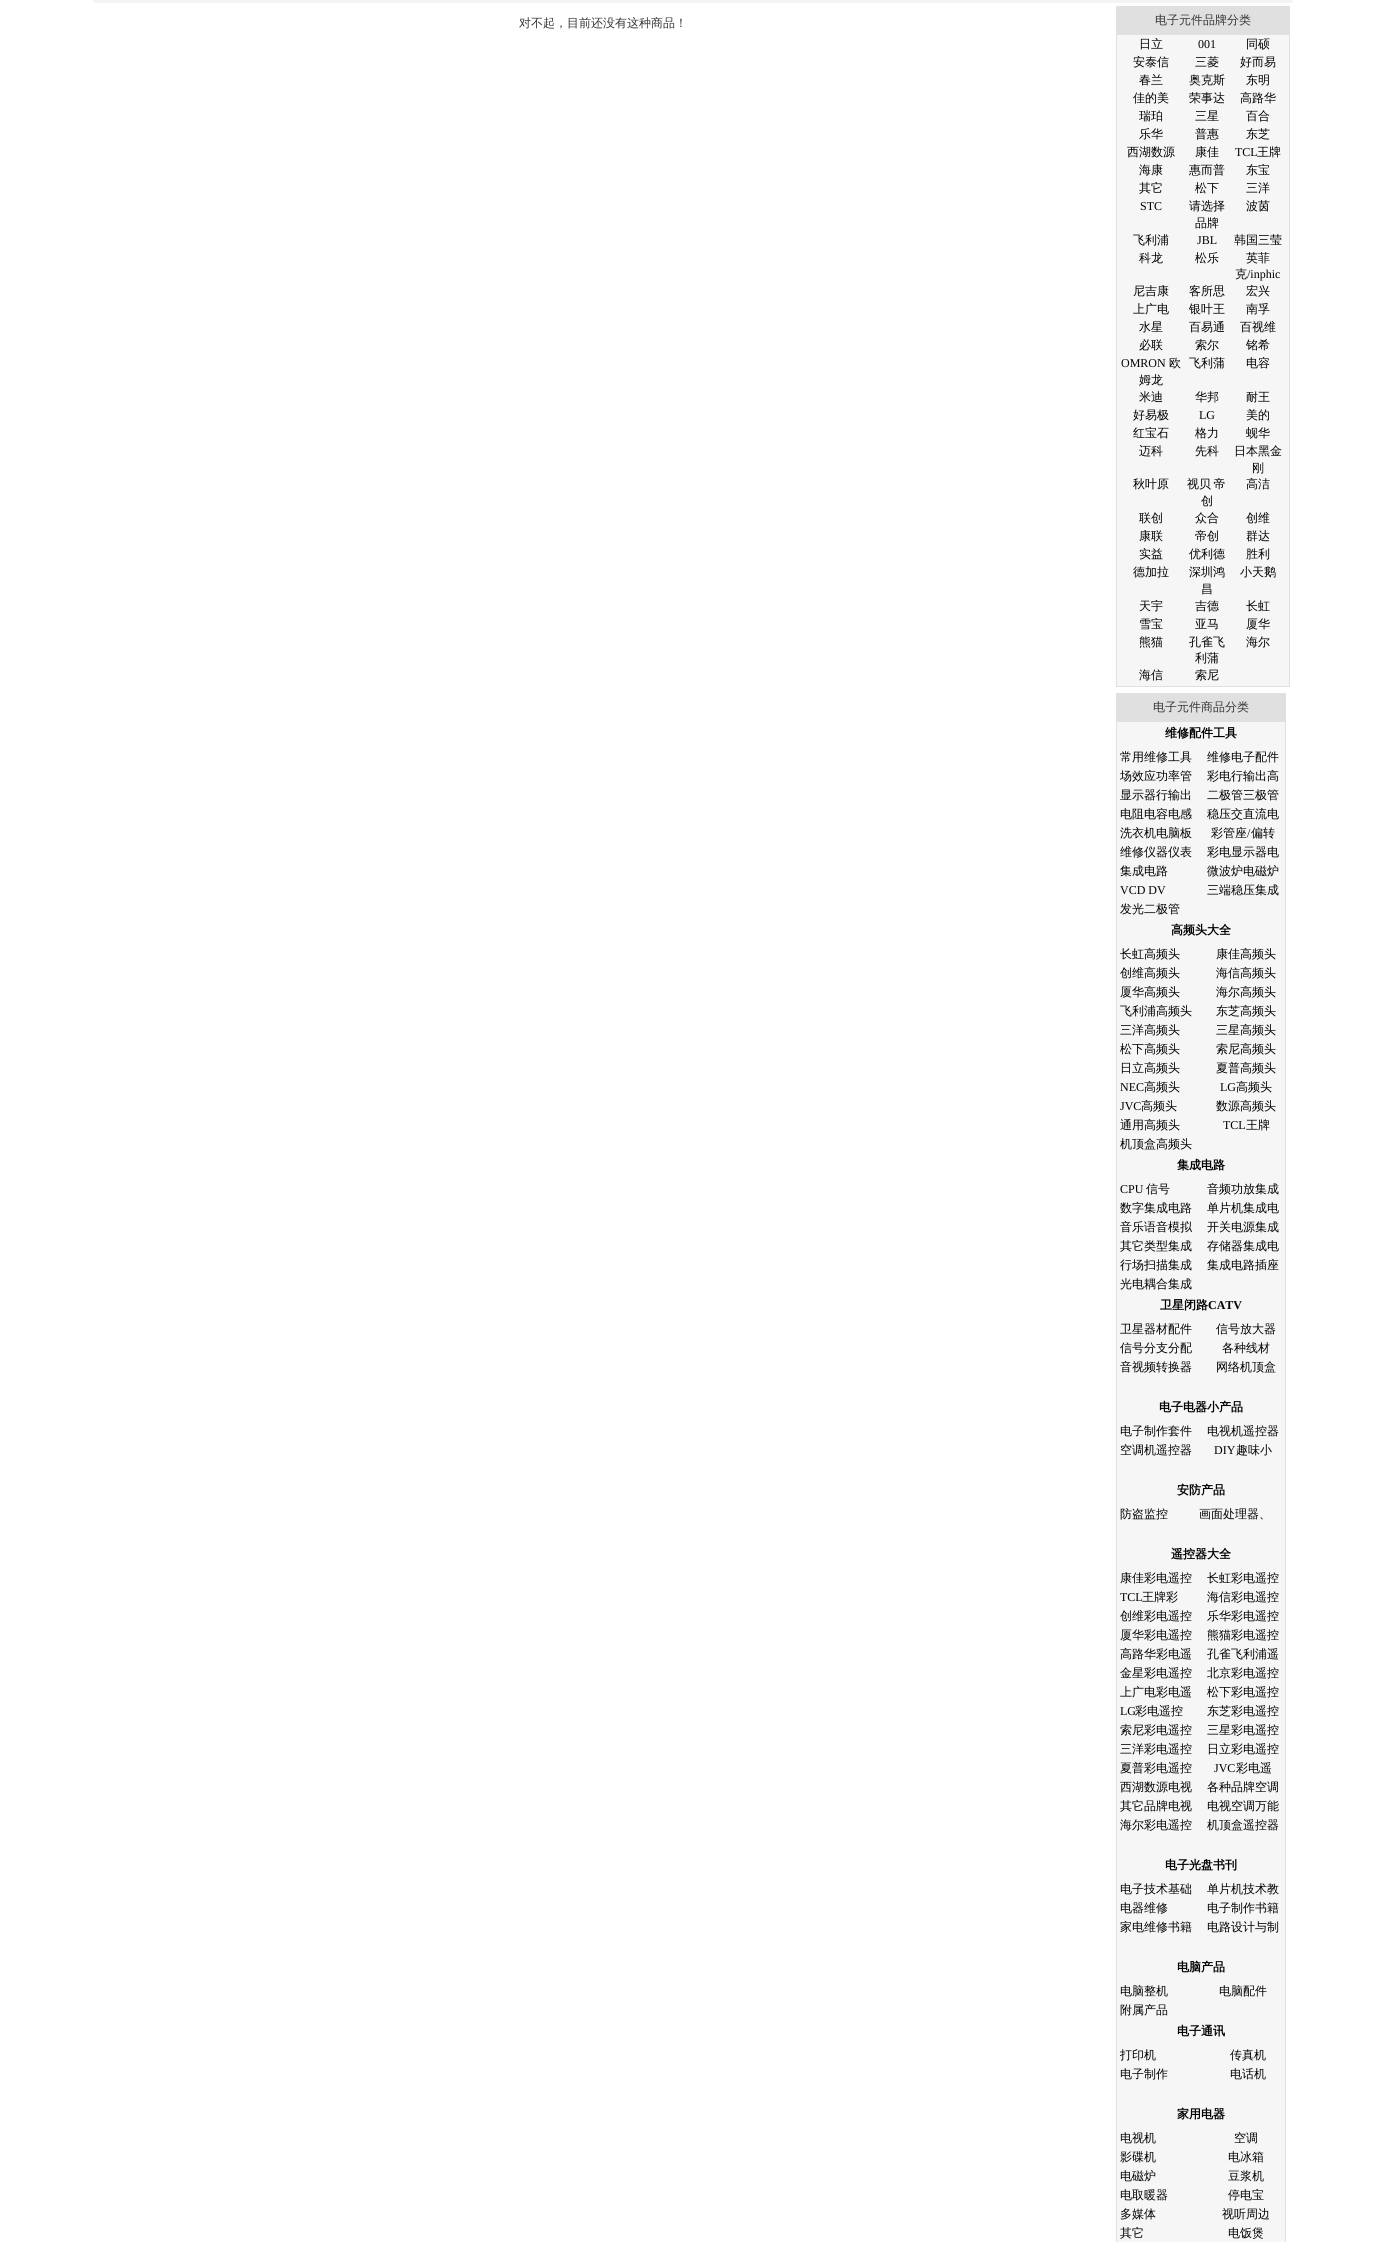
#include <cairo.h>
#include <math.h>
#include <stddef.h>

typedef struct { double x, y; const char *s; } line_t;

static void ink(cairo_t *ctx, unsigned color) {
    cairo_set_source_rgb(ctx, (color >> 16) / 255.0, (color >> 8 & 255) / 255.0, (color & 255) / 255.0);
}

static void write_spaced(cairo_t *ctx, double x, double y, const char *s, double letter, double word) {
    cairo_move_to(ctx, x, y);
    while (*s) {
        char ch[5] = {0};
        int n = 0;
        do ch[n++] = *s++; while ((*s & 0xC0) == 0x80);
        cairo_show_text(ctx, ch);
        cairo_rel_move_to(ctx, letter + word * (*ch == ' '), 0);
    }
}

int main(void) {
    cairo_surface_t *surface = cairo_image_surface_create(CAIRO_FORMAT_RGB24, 1385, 2242);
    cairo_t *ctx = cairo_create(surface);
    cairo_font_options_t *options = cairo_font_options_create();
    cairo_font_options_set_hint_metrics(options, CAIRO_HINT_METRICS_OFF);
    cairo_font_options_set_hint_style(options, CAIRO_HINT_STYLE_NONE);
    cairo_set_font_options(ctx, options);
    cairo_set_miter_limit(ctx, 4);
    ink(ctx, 0xFFFFFF);
    cairo_paint(ctx);
    ink(ctx, 0xF4F4F4);
    cairo_rectangle(ctx, 93, 0, 1200, 3);
    cairo_fill(ctx);
    cairo_select_font_face(ctx, "WenQuanYi Zen Hei Medium", CAIRO_FONT_SLANT_NORMAL, CAIRO_FONT_WEIGHT_NORMAL);
    cairo_set_font_size(ctx, 12);
    ink(ctx, 0x353535);
    cairo_move_to(ctx, 519, 27);
    cairo_show_text(ctx, "对不起，目前还没有这种商品！");
    ink(ctx, 0xE0E0E0);
    cairo_rectangle(ctx, 1116, 6, 174, 681);
    cairo_fill(ctx);
    ink(ctx, 0x353535);
    cairo_move_to(ctx, 1155, 24);
    cairo_show_text(ctx, "电子元件品牌分类");
    ink(ctx, 0xF6F6F6);
    cairo_rectangle(ctx, 1117, 35, 172, 651);
    cairo_fill(ctx);
    ink(ctx, 0x000000);
    cairo_move_to(ctx, 1139, 48);
    cairo_show_text(ctx, "日立");
    cairo_select_font_face(ctx, "Liberation Serif", CAIRO_FONT_SLANT_NORMAL, CAIRO_FONT_WEIGHT_NORMAL);
    cairo_move_to(ctx, 1198, 48);
    cairo_show_text(ctx, "001");
    cairo_select_font_face(ctx, "WenQuanYi Zen Hei Medium", CAIRO_FONT_SLANT_NORMAL, CAIRO_FONT_WEIGHT_NORMAL);
    {
        static const line_t items[] = {
            {1246, 48, "同硕"},
            {1133, 66, "安泰信"},
            {1195, 66, "三菱"},
            {1240, 66, "好而易"},
            {1139, 84, "春兰"},
            {1189, 84, "奥克斯"},
            {1246, 84, "东明"},
            {1133, 102, "佳的美"},
            {1189, 102, "荣事达"},
            {1240, 102, "高路华"},
            {1139, 120, "瑞珀"},
            {1195, 120, "三星"},
            {1246, 120, "百合"},
            {1139, 138, "乐华"},
            {1195, 138, "普惠"},
            {1246, 138, "东芝"},
            {1127, 156, "西湖数源"},
            {1195, 156, "康佳"},
        };
        for (size_t i = 0; i < sizeof items / sizeof *items; i++) {
            cairo_move_to(ctx, items[i].x, items[i].y);
            cairo_show_text(ctx, items[i].s);
        }
    }
    cairo_select_font_face(ctx, "Liberation Serif", CAIRO_FONT_SLANT_NORMAL, CAIRO_FONT_WEIGHT_NORMAL);
    cairo_move_to(ctx, 1235, 156);
    cairo_show_text(ctx, "TCL");
    cairo_select_font_face(ctx, "WenQuanYi Zen Hei Medium", CAIRO_FONT_SLANT_NORMAL, CAIRO_FONT_WEIGHT_NORMAL);
    {
        static const line_t items[] = {
            {1257, 156, "王牌"},
            {1139, 174, "海康"},
            {1189, 174, "惠而普"},
            {1246, 174, "东宝"},
            {1139, 192, "其它"},
            {1195, 192, "松下"},
            {1246, 192, "三洋"},
        };
        for (size_t i = 0; i < sizeof items / sizeof *items; i++) {
            cairo_move_to(ctx, items[i].x, items[i].y);
            cairo_show_text(ctx, items[i].s);
        }
    }
    cairo_select_font_face(ctx, "Liberation Serif", CAIRO_FONT_SLANT_NORMAL, CAIRO_FONT_WEIGHT_NORMAL);
    cairo_move_to(ctx, 1140, 210);
    cairo_show_text(ctx, "STC");
    cairo_select_font_face(ctx, "WenQuanYi Zen Hei Medium", CAIRO_FONT_SLANT_NORMAL, CAIRO_FONT_WEIGHT_NORMAL);
    {
        static const line_t items[] = {
            {1189, 210, "请选择"},
            {1195, 227, "品牌"},
            {1246, 210, "波茵"},
            {1133, 244, "飞利浦"},
        };
        for (size_t i = 0; i < sizeof items / sizeof *items; i++) {
            cairo_move_to(ctx, items[i].x, items[i].y);
            cairo_show_text(ctx, items[i].s);
        }
    }
    cairo_select_font_face(ctx, "Liberation Serif", CAIRO_FONT_SLANT_NORMAL, CAIRO_FONT_WEIGHT_NORMAL);
    cairo_move_to(ctx, 1197, 244);
    cairo_show_text(ctx, "JBL");
    cairo_select_font_face(ctx, "WenQuanYi Zen Hei Medium", CAIRO_FONT_SLANT_NORMAL, CAIRO_FONT_WEIGHT_NORMAL);
    {
        static const line_t items[] = {
            {1234, 244, "韩国三莹"},
            {1139, 262, "科龙"},
            {1195, 262, "松乐"},
            {1246, 262, "英菲"},
            {1235, 278, "克"},
        };
        for (size_t i = 0; i < sizeof items / sizeof *items; i++) {
            cairo_move_to(ctx, items[i].x, items[i].y);
            cairo_show_text(ctx, items[i].s);
        }
    }
    cairo_select_font_face(ctx, "Liberation Serif", CAIRO_FONT_SLANT_NORMAL, CAIRO_FONT_WEIGHT_NORMAL);
    cairo_move_to(ctx, 1247, 278);
    cairo_show_text(ctx, "/inphic");
    cairo_select_font_face(ctx, "WenQuanYi Zen Hei Medium", CAIRO_FONT_SLANT_NORMAL, CAIRO_FONT_WEIGHT_NORMAL);
    {
        static const line_t items[] = {
            {1133, 295, "尼吉康"},
            {1189, 295, "客所思"},
            {1246, 295, "宏兴"},
            {1133, 313, "上广电"},
            {1189, 313, "银叶王"},
            {1246, 313, "南孚"},
            {1139, 331, "水星"},
            {1189, 331, "百易通"},
            {1240, 331, "百视维"},
            {1139, 349, "必联"},
            {1195, 349, "索尔"},
            {1246, 349, "铭希"},
        };
        for (size_t i = 0; i < sizeof items / sizeof *items; i++) {
            cairo_move_to(ctx, items[i].x, items[i].y);
            cairo_show_text(ctx, items[i].s);
        }
    }
    cairo_select_font_face(ctx, "Liberation Serif", CAIRO_FONT_SLANT_NORMAL, CAIRO_FONT_WEIGHT_NORMAL);
    cairo_move_to(ctx, 1121, 367);
    cairo_show_text(ctx, "OMRON");
    cairo_select_font_face(ctx, "WenQuanYi Zen Hei Medium", CAIRO_FONT_SLANT_NORMAL, CAIRO_FONT_WEIGHT_NORMAL);
    {
        static const line_t items[] = {
            {1169, 367, "欧"},
            {1139, 384, "姆龙"},
            {1189, 367, "飞利蒲"},
            {1246, 367, "电容"},
            {1139, 401, "米迪"},
            {1195, 401, "华邦"},
            {1246, 401, "耐王"},
            {1133, 419, "好易极"},
        };
        for (size_t i = 0; i < sizeof items / sizeof *items; i++) {
            cairo_move_to(ctx, items[i].x, items[i].y);
            cairo_show_text(ctx, items[i].s);
        }
    }
    cairo_select_font_face(ctx, "Liberation Serif", CAIRO_FONT_SLANT_NORMAL, CAIRO_FONT_WEIGHT_NORMAL);
    cairo_move_to(ctx, 1199, 419);
    cairo_show_text(ctx, "LG");
    cairo_select_font_face(ctx, "WenQuanYi Zen Hei Medium", CAIRO_FONT_SLANT_NORMAL, CAIRO_FONT_WEIGHT_NORMAL);
    {
        static const line_t items[] = {
            {1246, 419, "美的"},
            {1133, 437, "红宝石"},
            {1195, 437, "格力"},
            {1246, 437, "蚬华"},
            {1139, 455, "迈科"},
            {1195, 455, "先科"},
            {1234, 455, "日本黑金"},
            {1252, 472, "刚"},
            {1133, 488, "秋叶原"},
        };
        for (size_t i = 0; i < sizeof items / sizeof *items; i++) {
            cairo_move_to(ctx, items[i].x, items[i].y);
            cairo_show_text(ctx, items[i].s);
        }
    }
    write_spaced(ctx, 1187, 488, "视贝 帝", 0, -1);
    {
        static const line_t items[] = {
            {1201, 505, "创"},
            {1246, 488, "高洁"},
            {1139, 522, "联创"},
            {1195, 522, "众合"},
            {1246, 522, "创维"},
            {1139, 540, "康联"},
            {1195, 540, "帝创"},
            {1246, 540, "群达"},
            {1139, 558, "实益"},
            {1189, 558, "优利德"},
            {1246, 558, "胜利"},
            {1133, 576, "德加拉"},
            {1189, 576, "深圳鸿"},
            {1201, 593, "昌"},
            {1240, 576, "小天鹅"},
            {1139, 610, "天宇"},
            {1195, 610, "吉德"},
            {1246, 610, "长虹"},
            {1139, 628, "雪宝"},
            {1195, 628, "亚马"},
            {1246, 628, "厦华"},
            {1139, 646, "熊猫"},
            {1189, 646, "孔雀飞"},
            {1195, 662, "利蒲"},
            {1246, 646, "海尔"},
            {1139, 679, "海信"},
            {1195, 679, "索尼"},
        };
        for (size_t i = 0; i < sizeof items / sizeof *items; i++) {
            cairo_move_to(ctx, items[i].x, items[i].y);
            cairo_show_text(ctx, items[i].s);
        }
    }
    ink(ctx, 0xE0E0E0);
    cairo_rectangle(ctx, 1116, 693, 170, 1549);
    cairo_fill(ctx);
    ink(ctx, 0x353535);
    cairo_move_to(ctx, 1153, 711);
    cairo_show_text(ctx, "电子元件商品分类");
    ink(ctx, 0xF6F6F6);
    cairo_rectangle(ctx, 1117, 722, 168, 1520);
    cairo_fill(ctx);
    cairo_select_font_face(ctx, "WenQuanYi Zen Hei", CAIRO_FONT_SLANT_NORMAL, CAIRO_FONT_WEIGHT_BOLD);
    ink(ctx, 0x000000);
    cairo_move_to(ctx, 1165, 737);
    cairo_show_text(ctx, "维修配件工具");
    cairo_select_font_face(ctx, "WenQuanYi Zen Hei Medium", CAIRO_FONT_SLANT_NORMAL, CAIRO_FONT_WEIGHT_NORMAL);
    {
        static const line_t items[] = {
            {1120, 761, "常用维修工具"},
            {1207, 761, "维修电子配件"},
            {1120, 780, "场效应功率管"},
            {1207, 780, "彩电行输出高"},
            {1120, 799, "显示器行输出"},
            {1207, 799, "二极管三极管"},
            {1120, 818, "电阻电容电感"},
            {1207, 818, "稳压交直流电"},
            {1120, 837, "洗衣机电脑板"},
            {1211, 837, "彩管座"},
        };
        for (size_t i = 0; i < sizeof items / sizeof *items; i++) {
            cairo_move_to(ctx, items[i].x, items[i].y);
            cairo_show_text(ctx, items[i].s);
        }
    }
    cairo_select_font_face(ctx, "Liberation Serif", CAIRO_FONT_SLANT_NORMAL, CAIRO_FONT_WEIGHT_NORMAL);
    cairo_move_to(ctx, 1247, 837);
    cairo_show_text(ctx, "/");
    cairo_select_font_face(ctx, "WenQuanYi Zen Hei Medium", CAIRO_FONT_SLANT_NORMAL, CAIRO_FONT_WEIGHT_NORMAL);
    {
        static const line_t items[] = {
            {1251, 837, "偏转"},
            {1120, 856, "维修仪器仪表"},
            {1207, 856, "彩电显示器电"},
            {1120, 875, "集成电路"},
            {1207, 875, "微波炉电磁炉"},
        };
        for (size_t i = 0; i < sizeof items / sizeof *items; i++) {
            cairo_move_to(ctx, items[i].x, items[i].y);
            cairo_show_text(ctx, items[i].s);
        }
    }
    cairo_select_font_face(ctx, "Liberation Serif", CAIRO_FONT_SLANT_NORMAL, CAIRO_FONT_WEIGHT_NORMAL);
    cairo_move_to(ctx, 1120, 894);
    cairo_show_text(ctx, "VCD DV");
    cairo_select_font_face(ctx, "WenQuanYi Zen Hei Medium", CAIRO_FONT_SLANT_NORMAL, CAIRO_FONT_WEIGHT_NORMAL);
    cairo_move_to(ctx, 1207, 894);
    cairo_show_text(ctx, "三端稳压集成");
    cairo_move_to(ctx, 1120, 913);
    cairo_show_text(ctx, "发光二极管");
    cairo_select_font_face(ctx, "WenQuanYi Zen Hei", CAIRO_FONT_SLANT_NORMAL, CAIRO_FONT_WEIGHT_BOLD);
    cairo_move_to(ctx, 1171, 934);
    cairo_show_text(ctx, "高频头大全");
    cairo_select_font_face(ctx, "WenQuanYi Zen Hei Medium", CAIRO_FONT_SLANT_NORMAL, CAIRO_FONT_WEIGHT_NORMAL);
    {
        static const line_t items[] = {
            {1120, 958, "长虹高频头"},
            {1216, 958, "康佳高频头"},
            {1120, 977, "创维高频头"},
            {1216, 977, "海信高频头"},
            {1120, 996, "厦华高频头"},
            {1216, 996, "海尔高频头"},
            {1120, 1015, "飞利浦高频头"},
            {1216, 1015, "东芝高频头"},
            {1120, 1034, "三洋高频头"},
            {1216, 1034, "三星高频头"},
            {1120, 1053, "松下高频头"},
            {1216, 1053, "索尼高频头"},
            {1120, 1072, "日立高频头"},
            {1216, 1072, "夏普高频头"},
        };
        for (size_t i = 0; i < sizeof items / sizeof *items; i++) {
            cairo_move_to(ctx, items[i].x, items[i].y);
            cairo_show_text(ctx, items[i].s);
        }
    }
    cairo_select_font_face(ctx, "Liberation Serif", CAIRO_FONT_SLANT_NORMAL, CAIRO_FONT_WEIGHT_NORMAL);
    cairo_move_to(ctx, 1120, 1091);
    cairo_show_text(ctx, "NEC");
    cairo_select_font_face(ctx, "WenQuanYi Zen Hei Medium", CAIRO_FONT_SLANT_NORMAL, CAIRO_FONT_WEIGHT_NORMAL);
    cairo_move_to(ctx, 1144, 1091);
    cairo_show_text(ctx, "高频头");
    cairo_select_font_face(ctx, "Liberation Serif", CAIRO_FONT_SLANT_NORMAL, CAIRO_FONT_WEIGHT_NORMAL);
    cairo_move_to(ctx, 1220, 1091);
    cairo_show_text(ctx, "LG");
    cairo_select_font_face(ctx, "WenQuanYi Zen Hei Medium", CAIRO_FONT_SLANT_NORMAL, CAIRO_FONT_WEIGHT_NORMAL);
    cairo_move_to(ctx, 1236, 1091);
    cairo_show_text(ctx, "高频头");
    cairo_select_font_face(ctx, "Liberation Serif", CAIRO_FONT_SLANT_NORMAL, CAIRO_FONT_WEIGHT_NORMAL);
    cairo_move_to(ctx, 1120, 1110);
    cairo_show_text(ctx, "JVC");
    cairo_select_font_face(ctx, "WenQuanYi Zen Hei Medium", CAIRO_FONT_SLANT_NORMAL, CAIRO_FONT_WEIGHT_NORMAL);
    {
        static const line_t items[] = {
            {1141, 1110, "高频头"},
            {1216, 1110, "数源高频头"},
            {1120, 1129, "通用高频头"},
        };
        for (size_t i = 0; i < sizeof items / sizeof *items; i++) {
            cairo_move_to(ctx, items[i].x, items[i].y);
            cairo_show_text(ctx, items[i].s);
        }
    }
    cairo_select_font_face(ctx, "Liberation Serif", CAIRO_FONT_SLANT_NORMAL, CAIRO_FONT_WEIGHT_NORMAL);
    cairo_move_to(ctx, 1223, 1129);
    cairo_show_text(ctx, "TCL");
    cairo_select_font_face(ctx, "WenQuanYi Zen Hei Medium", CAIRO_FONT_SLANT_NORMAL, CAIRO_FONT_WEIGHT_NORMAL);
    cairo_move_to(ctx, 1246, 1129);
    cairo_show_text(ctx, "王牌");
    cairo_move_to(ctx, 1120, 1148);
    cairo_show_text(ctx, "机顶盒高频头");
    cairo_select_font_face(ctx, "WenQuanYi Zen Hei", CAIRO_FONT_SLANT_NORMAL, CAIRO_FONT_WEIGHT_BOLD);
    cairo_move_to(ctx, 1177, 1169);
    cairo_show_text(ctx, "集成电路");
    cairo_select_font_face(ctx, "Liberation Serif", CAIRO_FONT_SLANT_NORMAL, CAIRO_FONT_WEIGHT_NORMAL);
    cairo_move_to(ctx, 1120, 1193);
    cairo_show_text(ctx, "CPU");
    cairo_select_font_face(ctx, "WenQuanYi Zen Hei Medium", CAIRO_FONT_SLANT_NORMAL, CAIRO_FONT_WEIGHT_NORMAL);
    {
        static const line_t items[] = {
            {1146, 1193, "信号"},
            {1207, 1193, "音频功放集成"},
            {1120, 1212, "数字集成电路"},
            {1207, 1212, "单片机集成电"},
            {1120, 1231, "音乐语音模拟"},
            {1207, 1231, "开关电源集成"},
            {1120, 1250, "其它类型集成"},
            {1207, 1250, "存储器集成电"},
            {1120, 1269, "行场扫描集成"},
            {1207, 1269, "集成电路插座"},
            {1120, 1288, "光电耦合集成"},
        };
        for (size_t i = 0; i < sizeof items / sizeof *items; i++) {
            cairo_move_to(ctx, items[i].x, items[i].y);
            cairo_show_text(ctx, items[i].s);
        }
    }
    cairo_select_font_face(ctx, "WenQuanYi Zen Hei", CAIRO_FONT_SLANT_NORMAL, CAIRO_FONT_WEIGHT_BOLD);
    cairo_move_to(ctx, 1160, 1309);
    cairo_show_text(ctx, "卫星闭路");
    cairo_select_font_face(ctx, "Liberation Serif", CAIRO_FONT_SLANT_NORMAL, CAIRO_FONT_WEIGHT_BOLD);
    cairo_move_to(ctx, 1208, 1309);
    cairo_show_text(ctx, "CATV");
    cairo_select_font_face(ctx, "WenQuanYi Zen Hei Medium", CAIRO_FONT_SLANT_NORMAL, CAIRO_FONT_WEIGHT_NORMAL);
    {
        static const line_t items[] = {
            {1120, 1333, "卫星器材配件"},
            {1216, 1333, "信号放大器"},
            {1120, 1352, "信号分支分配"},
            {1222, 1352, "各种线材"},
            {1120, 1371, "音视频转换器"},
            {1216, 1371, "网络机顶盒"},
        };
        for (size_t i = 0; i < sizeof items / sizeof *items; i++) {
            cairo_move_to(ctx, items[i].x, items[i].y);
            cairo_show_text(ctx, items[i].s);
        }
    }
    cairo_select_font_face(ctx, "WenQuanYi Zen Hei", CAIRO_FONT_SLANT_NORMAL, CAIRO_FONT_WEIGHT_BOLD);
    cairo_move_to(ctx, 1159, 1411);
    cairo_show_text(ctx, "电子电器小产品");
    cairo_select_font_face(ctx, "WenQuanYi Zen Hei Medium", CAIRO_FONT_SLANT_NORMAL, CAIRO_FONT_WEIGHT_NORMAL);
    {
        static const line_t items[] = {
            {1120, 1435, "电子制作套件"},
            {1207, 1435, "电视机遥控器"},
            {1120, 1454, "空调机遥控器"},
        };
        for (size_t i = 0; i < sizeof items / sizeof *items; i++) {
            cairo_move_to(ctx, items[i].x, items[i].y);
            cairo_show_text(ctx, items[i].s);
        }
    }
    cairo_select_font_face(ctx, "Liberation Serif", CAIRO_FONT_SLANT_NORMAL, CAIRO_FONT_WEIGHT_NORMAL);
    cairo_move_to(ctx, 1214, 1454);
    cairo_show_text(ctx, "DIY");
    cairo_select_font_face(ctx, "WenQuanYi Zen Hei Medium", CAIRO_FONT_SLANT_NORMAL, CAIRO_FONT_WEIGHT_NORMAL);
    cairo_move_to(ctx, 1236, 1454);
    cairo_show_text(ctx, "趣味小");
    cairo_select_font_face(ctx, "WenQuanYi Zen Hei", CAIRO_FONT_SLANT_NORMAL, CAIRO_FONT_WEIGHT_BOLD);
    cairo_move_to(ctx, 1177, 1494);
    cairo_show_text(ctx, "安防产品");
    cairo_select_font_face(ctx, "WenQuanYi Zen Hei Medium", CAIRO_FONT_SLANT_NORMAL, CAIRO_FONT_WEIGHT_NORMAL);
    cairo_move_to(ctx, 1120, 1518);
    cairo_show_text(ctx, "防盗监控");
    cairo_move_to(ctx, 1199, 1518);
    cairo_show_text(ctx, "画面处理器、");
    cairo_select_font_face(ctx, "WenQuanYi Zen Hei", CAIRO_FONT_SLANT_NORMAL, CAIRO_FONT_WEIGHT_BOLD);
    cairo_move_to(ctx, 1171, 1558);
    cairo_show_text(ctx, "遥控器大全");
    cairo_select_font_face(ctx, "WenQuanYi Zen Hei Medium", CAIRO_FONT_SLANT_NORMAL, CAIRO_FONT_WEIGHT_NORMAL);
    cairo_move_to(ctx, 1120, 1582);
    cairo_show_text(ctx, "康佳彩电遥控");
    cairo_move_to(ctx, 1207, 1582);
    cairo_show_text(ctx, "长虹彩电遥控");
    cairo_select_font_face(ctx, "Liberation Serif", CAIRO_FONT_SLANT_NORMAL, CAIRO_FONT_WEIGHT_NORMAL);
    cairo_move_to(ctx, 1120, 1601);
    cairo_show_text(ctx, "TCL");
    cairo_select_font_face(ctx, "WenQuanYi Zen Hei Medium", CAIRO_FONT_SLANT_NORMAL, CAIRO_FONT_WEIGHT_NORMAL);
    {
        static const line_t items[] = {
            {1142, 1601, "王牌彩"},
            {1207, 1601, "海信彩电遥控"},
            {1120, 1620, "创维彩电遥控"},
            {1207, 1620, "乐华彩电遥控"},
            {1120, 1639, "厦华彩电遥控"},
            {1207, 1639, "熊猫彩电遥控"},
            {1120, 1658, "高路华彩电遥"},
            {1207, 1658, "孔雀飞利浦遥"},
            {1120, 1677, "金星彩电遥控"},
            {1207, 1677, "北京彩电遥控"},
            {1120, 1696, "上广电彩电遥"},
            {1207, 1696, "松下彩电遥控"},
        };
        for (size_t i = 0; i < sizeof items / sizeof *items; i++) {
            cairo_move_to(ctx, items[i].x, items[i].y);
            cairo_show_text(ctx, items[i].s);
        }
    }
    cairo_select_font_face(ctx, "Liberation Serif", CAIRO_FONT_SLANT_NORMAL, CAIRO_FONT_WEIGHT_NORMAL);
    cairo_move_to(ctx, 1120, 1715);
    cairo_show_text(ctx, "LG");
    cairo_select_font_face(ctx, "WenQuanYi Zen Hei Medium", CAIRO_FONT_SLANT_NORMAL, CAIRO_FONT_WEIGHT_NORMAL);
    {
        static const line_t items[] = {
            {1135, 1715, "彩电遥控"},
            {1207, 1715, "东芝彩电遥控"},
            {1120, 1734, "索尼彩电遥控"},
            {1207, 1734, "三星彩电遥控"},
            {1120, 1753, "三洋彩电遥控"},
            {1207, 1753, "日立彩电遥控"},
            {1120, 1772, "夏普彩电遥控"},
        };
        for (size_t i = 0; i < sizeof items / sizeof *items; i++) {
            cairo_move_to(ctx, items[i].x, items[i].y);
            cairo_show_text(ctx, items[i].s);
        }
    }
    cairo_select_font_face(ctx, "Liberation Serif", CAIRO_FONT_SLANT_NORMAL, CAIRO_FONT_WEIGHT_NORMAL);
    cairo_move_to(ctx, 1214, 1772);
    cairo_show_text(ctx, "JVC");
    cairo_select_font_face(ctx, "WenQuanYi Zen Hei Medium", CAIRO_FONT_SLANT_NORMAL, CAIRO_FONT_WEIGHT_NORMAL);
    {
        static const line_t items[] = {
            {1236, 1772, "彩电遥"},
            {1120, 1791, "西湖数源电视"},
            {1207, 1791, "各种品牌空调"},
            {1120, 1810, "其它品牌电视"},
            {1207, 1810, "电视空调万能"},
            {1120, 1829, "海尔彩电遥控"},
            {1207, 1829, "机顶盒遥控器"},
        };
        for (size_t i = 0; i < sizeof items / sizeof *items; i++) {
            cairo_move_to(ctx, items[i].x, items[i].y);
            cairo_show_text(ctx, items[i].s);
        }
    }
    cairo_select_font_face(ctx, "WenQuanYi Zen Hei", CAIRO_FONT_SLANT_NORMAL, CAIRO_FONT_WEIGHT_BOLD);
    cairo_move_to(ctx, 1165, 1869);
    cairo_show_text(ctx, "电子光盘书刊");
    cairo_select_font_face(ctx, "WenQuanYi Zen Hei Medium", CAIRO_FONT_SLANT_NORMAL, CAIRO_FONT_WEIGHT_NORMAL);
    {
        static const line_t items[] = {
            {1120, 1893, "电子技术基础"},
            {1207, 1893, "单片机技术教"},
            {1120, 1912, "电器维修"},
            {1207, 1912, "电子制作书籍"},
            {1120, 1931, "家电维修书籍"},
            {1207, 1931, "电路设计与制"},
        };
        for (size_t i = 0; i < sizeof items / sizeof *items; i++) {
            cairo_move_to(ctx, items[i].x, items[i].y);
            cairo_show_text(ctx, items[i].s);
        }
    }
    cairo_select_font_face(ctx, "WenQuanYi Zen Hei", CAIRO_FONT_SLANT_NORMAL, CAIRO_FONT_WEIGHT_BOLD);
    cairo_move_to(ctx, 1177, 1971);
    cairo_show_text(ctx, "电脑产品");
    cairo_select_font_face(ctx, "WenQuanYi Zen Hei Medium", CAIRO_FONT_SLANT_NORMAL, CAIRO_FONT_WEIGHT_NORMAL);
    {
        static const line_t items[] = {
            {1120, 1995, "电脑整机"},
            {1219, 1995, "电脑配件"},
            {1120, 2014, "附属产品"},
        };
        for (size_t i = 0; i < sizeof items / sizeof *items; i++) {
            cairo_move_to(ctx, items[i].x, items[i].y);
            cairo_show_text(ctx, items[i].s);
        }
    }
    cairo_select_font_face(ctx, "WenQuanYi Zen Hei", CAIRO_FONT_SLANT_NORMAL, CAIRO_FONT_WEIGHT_BOLD);
    cairo_move_to(ctx, 1177, 2035);
    cairo_show_text(ctx, "电子通讯");
    cairo_select_font_face(ctx, "WenQuanYi Zen Hei Medium", CAIRO_FONT_SLANT_NORMAL, CAIRO_FONT_WEIGHT_NORMAL);
    {
        static const line_t items[] = {
            {1120, 2059, "打印机"},
            {1230, 2059, "传真机"},
            {1120, 2078, "电子制作"},
            {1230, 2078, "电话机"},
        };
        for (size_t i = 0; i < sizeof items / sizeof *items; i++) {
            cairo_move_to(ctx, items[i].x, items[i].y);
            cairo_show_text(ctx, items[i].s);
        }
    }
    cairo_select_font_face(ctx, "WenQuanYi Zen Hei", CAIRO_FONT_SLANT_NORMAL, CAIRO_FONT_WEIGHT_BOLD);
    cairo_move_to(ctx, 1177, 2118);
    cairo_show_text(ctx, "家用电器");
    cairo_select_font_face(ctx, "WenQuanYi Zen Hei Medium", CAIRO_FONT_SLANT_NORMAL, CAIRO_FONT_WEIGHT_NORMAL);
    {
        static const line_t items[] = {
            {1120, 2142, "电视机"},
            {1234, 2142, "空调"},
            {1120, 2161, "影碟机"},
            {1228, 2161, "电冰箱"},
            {1120, 2180, "电磁炉"},
            {1228, 2180, "豆浆机"},
            {1120, 2199, "电取暖器"},
            {1228, 2199, "停电宝"},
            {1120, 2218, "多媒体"},
            {1222, 2218, "视听周边"},
            {1120, 2237, "其它"},
            {1228, 2237, "电饭煲"},
        };
        for (size_t i = 0; i < sizeof items / sizeof *items; i++) {
            cairo_move_to(ctx, items[i].x, items[i].y);
            cairo_show_text(ctx, items[i].s);
        }
    }
    cairo_surface_write_to_png(surface, "image.png");
    cairo_font_options_destroy(options);
    cairo_destroy(ctx);
    cairo_surface_destroy(surface);
    return 0;
}
